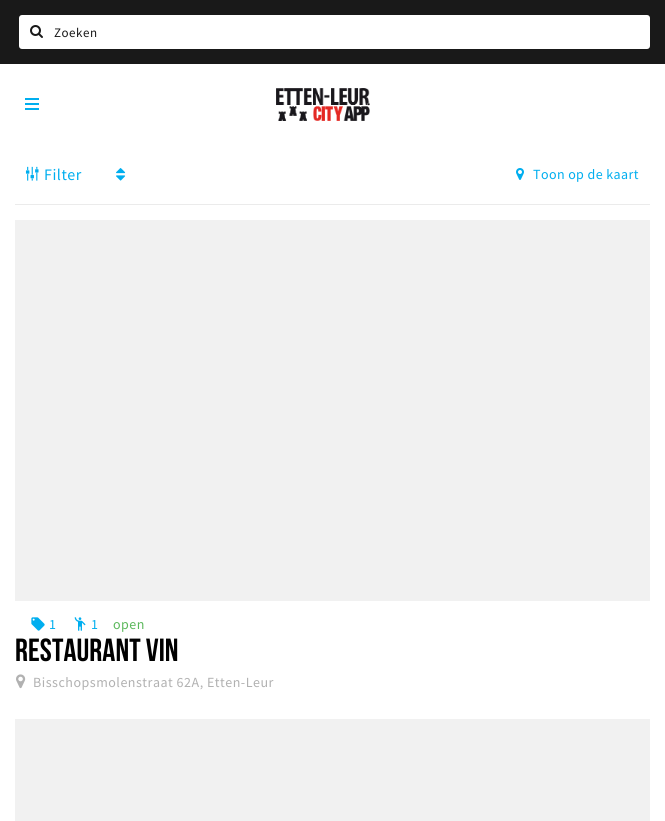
#include <cairo.h>
#include <math.h>
#include <stddef.h>

typedef struct { double x, y, w, h; unsigned color; } box_t;

static void ink(cairo_t *ctx, unsigned color) {
    cairo_set_source_rgb(ctx, (color >> 16) / 255.0, (color >> 8 & 255) / 255.0, (color & 255) / 255.0);
}

static void write_spaced(cairo_t *ctx, double x, double y, const char *s, double letter, double word) {
    cairo_move_to(ctx, x, y);
    while (*s) {
        char ch[5] = {0};
        int n = 0;
        do ch[n++] = *s++; while ((*s & 0xC0) == 0x80);
        cairo_show_text(ctx, ch);
        cairo_rel_move_to(ctx, letter + word * (*ch == ' '), 0);
    }
}

static void round_path(cairo_t *ctx, double x, double y, double w, double h, double r) {
    cairo_new_sub_path(ctx);
    cairo_arc(ctx, x + w - r, y + h - r, r, 0, M_PI / 2);
    cairo_arc(ctx, x + r, y + h - r, r, M_PI / 2, M_PI);
    cairo_arc(ctx, x + r, y + r, r, M_PI, 1.5 * M_PI);
    cairo_arc(ctx, x + w - r, y + r, r, 1.5 * M_PI, 2 * M_PI);
    cairo_close_path(ctx);
}

static void paste(cairo_t *ctx, const char *path, double x, double y, double w, double h) {
    cairo_surface_t *image = cairo_image_surface_create_from_png(path);
    cairo_save(ctx);
    cairo_set_source_surface(ctx, image, x, y);
    cairo_rectangle(ctx, x, y, w, h);
    cairo_fill(ctx);
    cairo_restore(ctx);
    cairo_surface_destroy(image);
}

int main(void) {
    cairo_surface_t *surface = cairo_image_surface_create(CAIRO_FORMAT_RGB24, 665, 821);
    cairo_t *ctx = cairo_create(surface);
    cairo_font_options_t *options = cairo_font_options_create();
    cairo_font_options_set_hint_metrics(options, CAIRO_HINT_METRICS_OFF);
    cairo_font_options_set_hint_style(options, CAIRO_HINT_STYLE_NONE);
    cairo_set_font_options(ctx, options);
    cairo_set_miter_limit(ctx, 4);
    ink(ctx, 0x191919);
    cairo_paint(ctx);
    ink(ctx, 0xFFFFFF);
    round_path(ctx, 19, 15, 631, 34, 3);
    cairo_fill(ctx);
    paste(ctx, "media/1.png", 30, 25, 13, 13);
    cairo_select_font_face(ctx, "Source Sans Pro", CAIRO_FONT_SLANT_NORMAL, CAIRO_FONT_WEIGHT_NORMAL);
    cairo_set_font_size(ctx, 13);
    ink(ctx, 0x191919);
    write_spaced(ctx, 54, 37, "Zoeken", 0.5, 0);
    {
        static const box_t items[] = {
            {0, 64, 665, 757, 0xFFFFFF},
            {25, 98, 14, 2, 0x00AEEF},
            {25, 103, 14, 2, 0x00AEEF},
            {25, 108, 14, 2, 0x00AEEF},
        };
        for (size_t i = 0; i < sizeof items / sizeof *items; i++) {
            ink(ctx, items[i].color);
            cairo_rectangle(ctx, items[i].x, items[i].y, items[i].w, items[i].h);
            cairo_fill(ctx);
        }
    }
    paste(ctx, "media/2.png", 276, 88, 94, 33);
    ink(ctx, 0xEBEBEB);
    cairo_rectangle(ctx, 15, 204, 635, 1);
    cairo_fill(ctx);
    paste(ctx, "media/3.png", 25, 166, 14, 15);
    cairo_set_font_size(ctx, 16);
    ink(ctx, 0x00AEEF);
    write_spaced(ctx, 44, 180, "Filter", 0.5, 0);
    paste(ctx, "media/4.png", 116, 168, 10, 13);
    paste(ctx, "media/5.png", 516, 168, 8, 12);
    cairo_set_font_size(ctx, 14);
    write_spaced(ctx, 533, 179, "Toon op de kaart", 0.4, 0);
    ink(ctx, 0xF1F1F1);
    cairo_rectangle(ctx, 15, 220, 635, 381);
    cairo_fill(ctx);
    paste(ctx, "media/6.png", 31, 617, 14, 14);
    ink(ctx, 0x00AEEF);
    write_spaced(ctx, 49, 629, "1", 0.5, 0);
    paste(ctx, "media/7.png", 74, 617, 12, 14);
    write_spaced(ctx, 91, 629, "1", 0.5, 0);
    ink(ctx, 0x5CB85C);
    write_spaced(ctx, 113, 629, "open", 0.5, 0);
    cairo_select_font_face(ctx, "Bebas Neue", CAIRO_FONT_SLANT_NORMAL, CAIRO_FONT_WEIGHT_NORMAL);
    cairo_set_font_size(ctx, 32);
    ink(ctx, 0x000000);
    write_spaced(ctx, 15, 661, "RESTAURANT VIN", 0.1, 0);
    paste(ctx, "media/8.png", 16, 674, 10, 15);
    cairo_select_font_face(ctx, "Source Sans Pro", CAIRO_FONT_SLANT_NORMAL, CAIRO_FONT_WEIGHT_NORMAL);
    cairo_set_font_size(ctx, 14);
    ink(ctx, 0xB1B1B1);
    write_spaced(ctx, 33, 687, "Bisschopsmolenstraat 62A, Etten-Leur", 0.5, 0);
    ink(ctx, 0xF1F1F1);
    cairo_rectangle(ctx, 15, 719, 635, 102);
    cairo_fill(ctx);
    cairo_surface_write_to_png(surface, "image.png");
    cairo_font_options_destroy(options);
    cairo_destroy(ctx);
    cairo_surface_destroy(surface);
    return 0;
}
